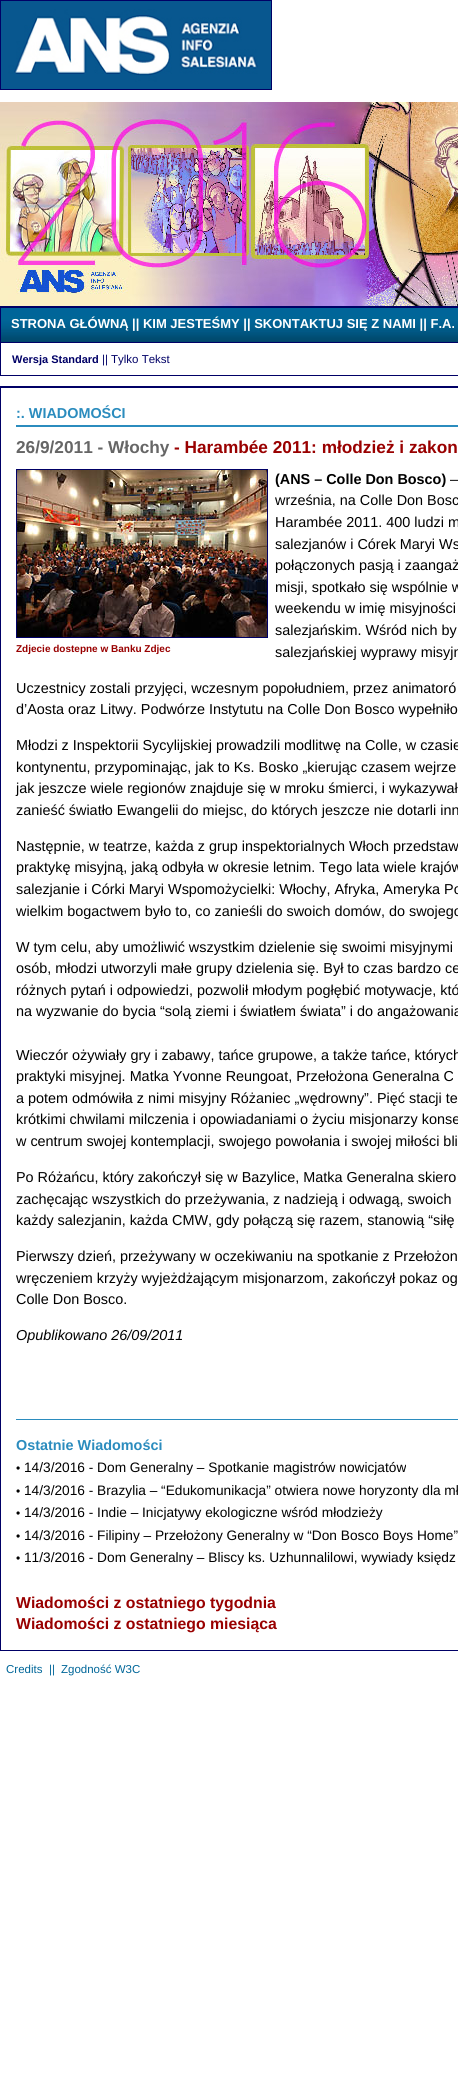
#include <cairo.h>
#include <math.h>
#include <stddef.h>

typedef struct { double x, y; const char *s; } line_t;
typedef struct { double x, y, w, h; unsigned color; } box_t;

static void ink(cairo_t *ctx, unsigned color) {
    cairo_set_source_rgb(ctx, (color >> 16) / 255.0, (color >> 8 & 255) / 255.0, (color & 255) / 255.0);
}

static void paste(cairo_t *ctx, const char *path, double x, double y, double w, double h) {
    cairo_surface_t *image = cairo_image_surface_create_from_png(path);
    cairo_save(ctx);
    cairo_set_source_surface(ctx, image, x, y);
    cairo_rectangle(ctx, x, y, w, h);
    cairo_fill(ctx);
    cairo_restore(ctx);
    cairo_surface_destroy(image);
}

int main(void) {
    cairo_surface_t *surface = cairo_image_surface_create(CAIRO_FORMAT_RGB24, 458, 2086);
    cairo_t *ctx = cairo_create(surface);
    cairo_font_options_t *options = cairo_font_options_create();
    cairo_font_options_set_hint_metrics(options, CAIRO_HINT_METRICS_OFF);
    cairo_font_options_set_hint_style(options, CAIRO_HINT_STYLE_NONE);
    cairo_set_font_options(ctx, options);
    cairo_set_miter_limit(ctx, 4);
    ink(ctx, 0xFFFFFF);
    cairo_paint(ctx);
    cairo_rectangle(ctx, 0.5, 0.5, 271, 89);
    ink(ctx, 0x000066);
    cairo_set_line_width(ctx, 1);
    cairo_stroke(ctx);
    paste(ctx, "media/1.png", 1, 1, 270, 88);
    paste(ctx, "media/2.png", 0, 102, 458, 204);
    paste(ctx, "media/3.png", 1, 308, 457, 34);
    {
        static const box_t items[] = {
            {0, 306, 458, 2, 0x000066},
            {0, 342, 458, 1, 0x000066},
            {0, 306, 1, 37, 0x000066},
        };
        for (size_t i = 0; i < sizeof items / sizeof *items; i++) {
            ink(ctx, items[i].color);
            cairo_rectangle(ctx, items[i].x, items[i].y, items[i].w, items[i].h);
            cairo_fill(ctx);
        }
    }
    cairo_select_font_face(ctx, "Liberation Sans", CAIRO_FONT_SLANT_NORMAL, CAIRO_FONT_WEIGHT_BOLD);
    cairo_set_font_size(ctx, 13);
    ink(ctx, 0xFFFFFF);
    cairo_move_to(ctx, 11, 328);
    cairo_show_text(ctx, "STRONA GŁÓWNĄ");
    cairo_move_to(ctx, 132, 328);
    cairo_show_text(ctx, "|| KIM JESTEŚMY || SKONTAKTUJ SIĘ Z NAMI || F.A.");
    ink(ctx, 0x000066);
    cairo_rectangle(ctx, 0, 375, 458, 1);
    cairo_fill(ctx);
    cairo_rectangle(ctx, 0, 343, 1, 33);
    cairo_fill(ctx);
    cairo_set_font_size(ctx, 11);
    cairo_move_to(ctx, 12, 363);
    cairo_show_text(ctx, "Wersja Standard");
    cairo_select_font_face(ctx, "Liberation Sans", CAIRO_FONT_SLANT_NORMAL, CAIRO_FONT_WEIGHT_NORMAL);
    cairo_set_font_size(ctx, 11.5);
    cairo_move_to(ctx, 102, 363);
    cairo_show_text(ctx, "||");
    cairo_move_to(ctx, 111, 363);
    cairo_show_text(ctx, "Tylko Tekst");
    {
        static const box_t items[] = {
            {0, 386, 458, 2, 0x000066},
            {0, 1650, 458, 1, 0x000066},
            {0, 386, 1, 1265, 0x000066},
            {16, 425, 442, 2, 0x2B8CBE},
        };
        for (size_t i = 0; i < sizeof items / sizeof *items; i++) {
            ink(ctx, items[i].color);
            cairo_rectangle(ctx, items[i].x, items[i].y, items[i].w, items[i].h);
            cairo_fill(ctx);
        }
    }
    cairo_select_font_face(ctx, "Liberation Sans", CAIRO_FONT_SLANT_NORMAL, CAIRO_FONT_WEIGHT_BOLD);
    cairo_set_font_size(ctx, 14.4);
    cairo_move_to(ctx, 16, 418);
    cairo_show_text(ctx, ":. WIADOMOŚCI");
    cairo_set_font_size(ctx, 17.25);
    ink(ctx, 0x666666);
    cairo_move_to(ctx, 16, 453);
    cairo_show_text(ctx, "26/9/2011 - Włochy");
    ink(ctx, 0x990000);
    cairo_move_to(ctx, 174, 453);
    cairo_show_text(ctx, "- Harambée 2011: młodzież i zakon");
    cairo_set_font_size(ctx, 14.4);
    ink(ctx, 0x000000);
    cairo_move_to(ctx, 275, 484);
    cairo_show_text(ctx, "(ANS – Colle Don Bosco)");
    cairo_select_font_face(ctx, "Liberation Sans", CAIRO_FONT_SLANT_NORMAL, CAIRO_FONT_WEIGHT_NORMAL);
    {
        static const line_t items[] = {
            {450, 484, "–"},
            {275, 505, "września, na Colle Don Bosc"},
            {275, 527, "Harambée 2011. 400 ludzi m"},
            {275, 549, "salezjanów i Córek Maryi Ws"},
            {275, 570, "połączonych pasją i zaangaż"},
            {275, 592, "misji, spotkało się wspólnie w"},
            {275, 613, "weekendu w imię misyjności"},
            {275, 635, "salezjańskim. Wśród nich by"},
            {275, 657, "salezjańskiej wyprawy misyjn"},
            {16, 693, "Uczestnicy zostali przyjęci, wczesnym popołudniem, przez animatoró"},
            {16, 714, "d’Aosta oraz Litwy. Podwórze Instytutu na Colle Don Bosco wypełniło"},
            {16, 750, "Młodzi z Inspektorii Sycylijskiej prowadzili modlitwę na Colle, w czasie"},
            {16, 772, "kontynentu, przypominając, jak to Ks. Bosko „kierując czasem wejrze"},
            {16, 793, "jak jeszcze wiele regionów znajduje się w mroku śmierci, i wykazywał"},
            {16, 815, "zanieść światło Ewangelii do miejsc, do których jeszcze nie dotarli inn"},
            {16, 851, "Następnie, w teatrze, każda z grup inspektorialnych Włoch przedstaw"},
            {16, 872, "praktykę misyjną, jaką odbyła w okresie letnim. Tego lata wiele krajów"},
            {16, 894, "salezjanie i Córki Maryi Wspomożycielki: Włochy, Afryka, Ameryka Po"},
            {16, 916, "wielkim bogactwem było to, co zanieśli do swoich domów, do swojego"},
            {16, 952, "W tym celu, aby umożliwić wszystkim dzielenie się swoimi misyjnymi"},
            {16, 973, "osób, młodzi utworzyli małe grupy dzielenia się. Był to czas bardzo ce"},
            {16, 995, "różnych pytań i odpowiedzi, pozwolił młodym pogłębić motywacje, któ"},
            {16, 1016, "na wyzwanie do bycia “solą ziemi i światłem świata” i do angażowania"},
            {16, 1060, "Wieczór ożywiały gry i zabawy, tańce grupowe, a także tańce, których"},
            {16, 1081, "praktyki misyjnej. Matka Yvonne Reungoat, Przełożona Generalna C"},
            {16, 1103, "a potem odmówiła z nimi misyjny Różaniec „wędrowny”. Pięć stacji te"},
            {16, 1124, "krótkimi chwilami milczenia i opowiadaniami o życiu misjonarzy konse"},
            {16, 1146, "w centrum swojej kontemplacji, swojego powołania i swojej miłości bli"},
            {16, 1182, "Po Różańcu, który zakończył się w Bazylice, Matka Generalna skiero"},
            {16, 1204, "zachęcając wszystkich do przeżywania, z nadzieją i odwagą, swoich"},
            {16, 1225, "każdy salezjanin, każda CMW, gdy połączą się razem, stanowią “siłę"},
            {16, 1261, "Pierwszy dzień, przeżywany w oczekiwaniu na spotkanie z Przełożon"},
            {16, 1283, "wręczeniem krzyży wyjeżdżającym misjonarzom, zakończył pokaz og"},
            {16, 1304, "Colle Don Bosco."},
        };
        for (size_t i = 0; i < sizeof items / sizeof *items; i++) {
            cairo_move_to(ctx, items[i].x, items[i].y);
            cairo_show_text(ctx, items[i].s);
        }
    }
    cairo_select_font_face(ctx, "Liberation Sans", CAIRO_FONT_SLANT_ITALIC, CAIRO_FONT_WEIGHT_NORMAL);
    cairo_move_to(ctx, 16, 1340);
    cairo_show_text(ctx, "Opublikowano 26/09/2011");
    cairo_rectangle(ctx, 16.5, 469.5, 251, 168);
    ink(ctx, 0x000066);
    cairo_stroke(ctx);
    paste(ctx, "media/4.png", 17, 470, 250, 167);
    cairo_select_font_face(ctx, "Liberation Sans", CAIRO_FONT_SLANT_NORMAL, CAIRO_FONT_WEIGHT_BOLD);
    cairo_set_font_size(ctx, 10);
    ink(ctx, 0x990000);
    cairo_move_to(ctx, 16, 652);
    cairo_show_text(ctx, "Zdjecie dostepne w Banku Zdjec");
    ink(ctx, 0x2B8CBE);
    cairo_rectangle(ctx, 16, 1419, 442, 1);
    cairo_fill(ctx);
    cairo_set_font_size(ctx, 14.4);
    cairo_move_to(ctx, 16, 1450);
    cairo_show_text(ctx, "Ostatnie Wiadomości");
    cairo_select_font_face(ctx, "Liberation Sans", CAIRO_FONT_SLANT_NORMAL, CAIRO_FONT_WEIGHT_NORMAL);
    cairo_set_font_size(ctx, 12);
    ink(ctx, 0x000000);
    cairo_move_to(ctx, 16, 1472);
    cairo_show_text(ctx, "•");
    cairo_set_font_size(ctx, 13.7);
    cairo_move_to(ctx, 24, 1472);
    cairo_show_text(ctx, "14/3/2016 - Dom Generalny – Spotkanie magistrów nowicjatów");
    cairo_set_font_size(ctx, 12);
    cairo_move_to(ctx, 16, 1495);
    cairo_show_text(ctx, "•");
    cairo_set_font_size(ctx, 13.7);
    cairo_move_to(ctx, 24, 1495);
    cairo_show_text(ctx, "14/3/2016 - Brazylia – “Edukomunikacja” otwiera nowe horyzonty dla mł");
    cairo_set_font_size(ctx, 12);
    cairo_move_to(ctx, 16, 1517);
    cairo_show_text(ctx, "•");
    cairo_set_font_size(ctx, 13.7);
    cairo_move_to(ctx, 24, 1517);
    cairo_show_text(ctx, "14/3/2016 - Indie – Inicjatywy ekologiczne wśród młodzieży");
    cairo_set_font_size(ctx, 12);
    cairo_move_to(ctx, 16, 1540);
    cairo_show_text(ctx, "•");
    cairo_set_font_size(ctx, 13.7);
    cairo_move_to(ctx, 24, 1540);
    cairo_show_text(ctx, "14/3/2016 - Filipiny – Przełożony Generalny w “Don Bosco Boys Home”");
    cairo_set_font_size(ctx, 12);
    cairo_move_to(ctx, 16, 1562);
    cairo_show_text(ctx, "•");
    cairo_set_font_size(ctx, 13.7);
    cairo_move_to(ctx, 24, 1562);
    cairo_show_text(ctx, "11/3/2016 - Dom Generalny – Bliscy ks. Uzhunnalilowi, wywiady księdz");
    cairo_select_font_face(ctx, "Liberation Sans", CAIRO_FONT_SLANT_NORMAL, CAIRO_FONT_WEIGHT_BOLD);
    cairo_set_font_size(ctx, 15.8);
    ink(ctx, 0x990000);
    cairo_move_to(ctx, 16, 1608);
    cairo_show_text(ctx, "Wiadomości z ostatniego tygodnia");
    cairo_move_to(ctx, 16, 1629);
    cairo_show_text(ctx, "Wiadomości z ostatniego miesiąca");
    cairo_select_font_face(ctx, "Liberation Sans", CAIRO_FONT_SLANT_NORMAL, CAIRO_FONT_WEIGHT_NORMAL);
    cairo_set_font_size(ctx, 11.5);
    ink(ctx, 0x006699);
    {
        static const line_t items[] = {
            {6, 1673, "Credits"},
            {49, 1673, "||"},
            {61, 1673, "Zgodność W3C"},
        };
        for (size_t i = 0; i < sizeof items / sizeof *items; i++) {
            cairo_move_to(ctx, items[i].x, items[i].y);
            cairo_show_text(ctx, items[i].s);
        }
    }
    cairo_surface_write_to_png(surface, "image.png");
    cairo_font_options_destroy(options);
    cairo_destroy(ctx);
    cairo_surface_destroy(surface);
    return 0;
}
